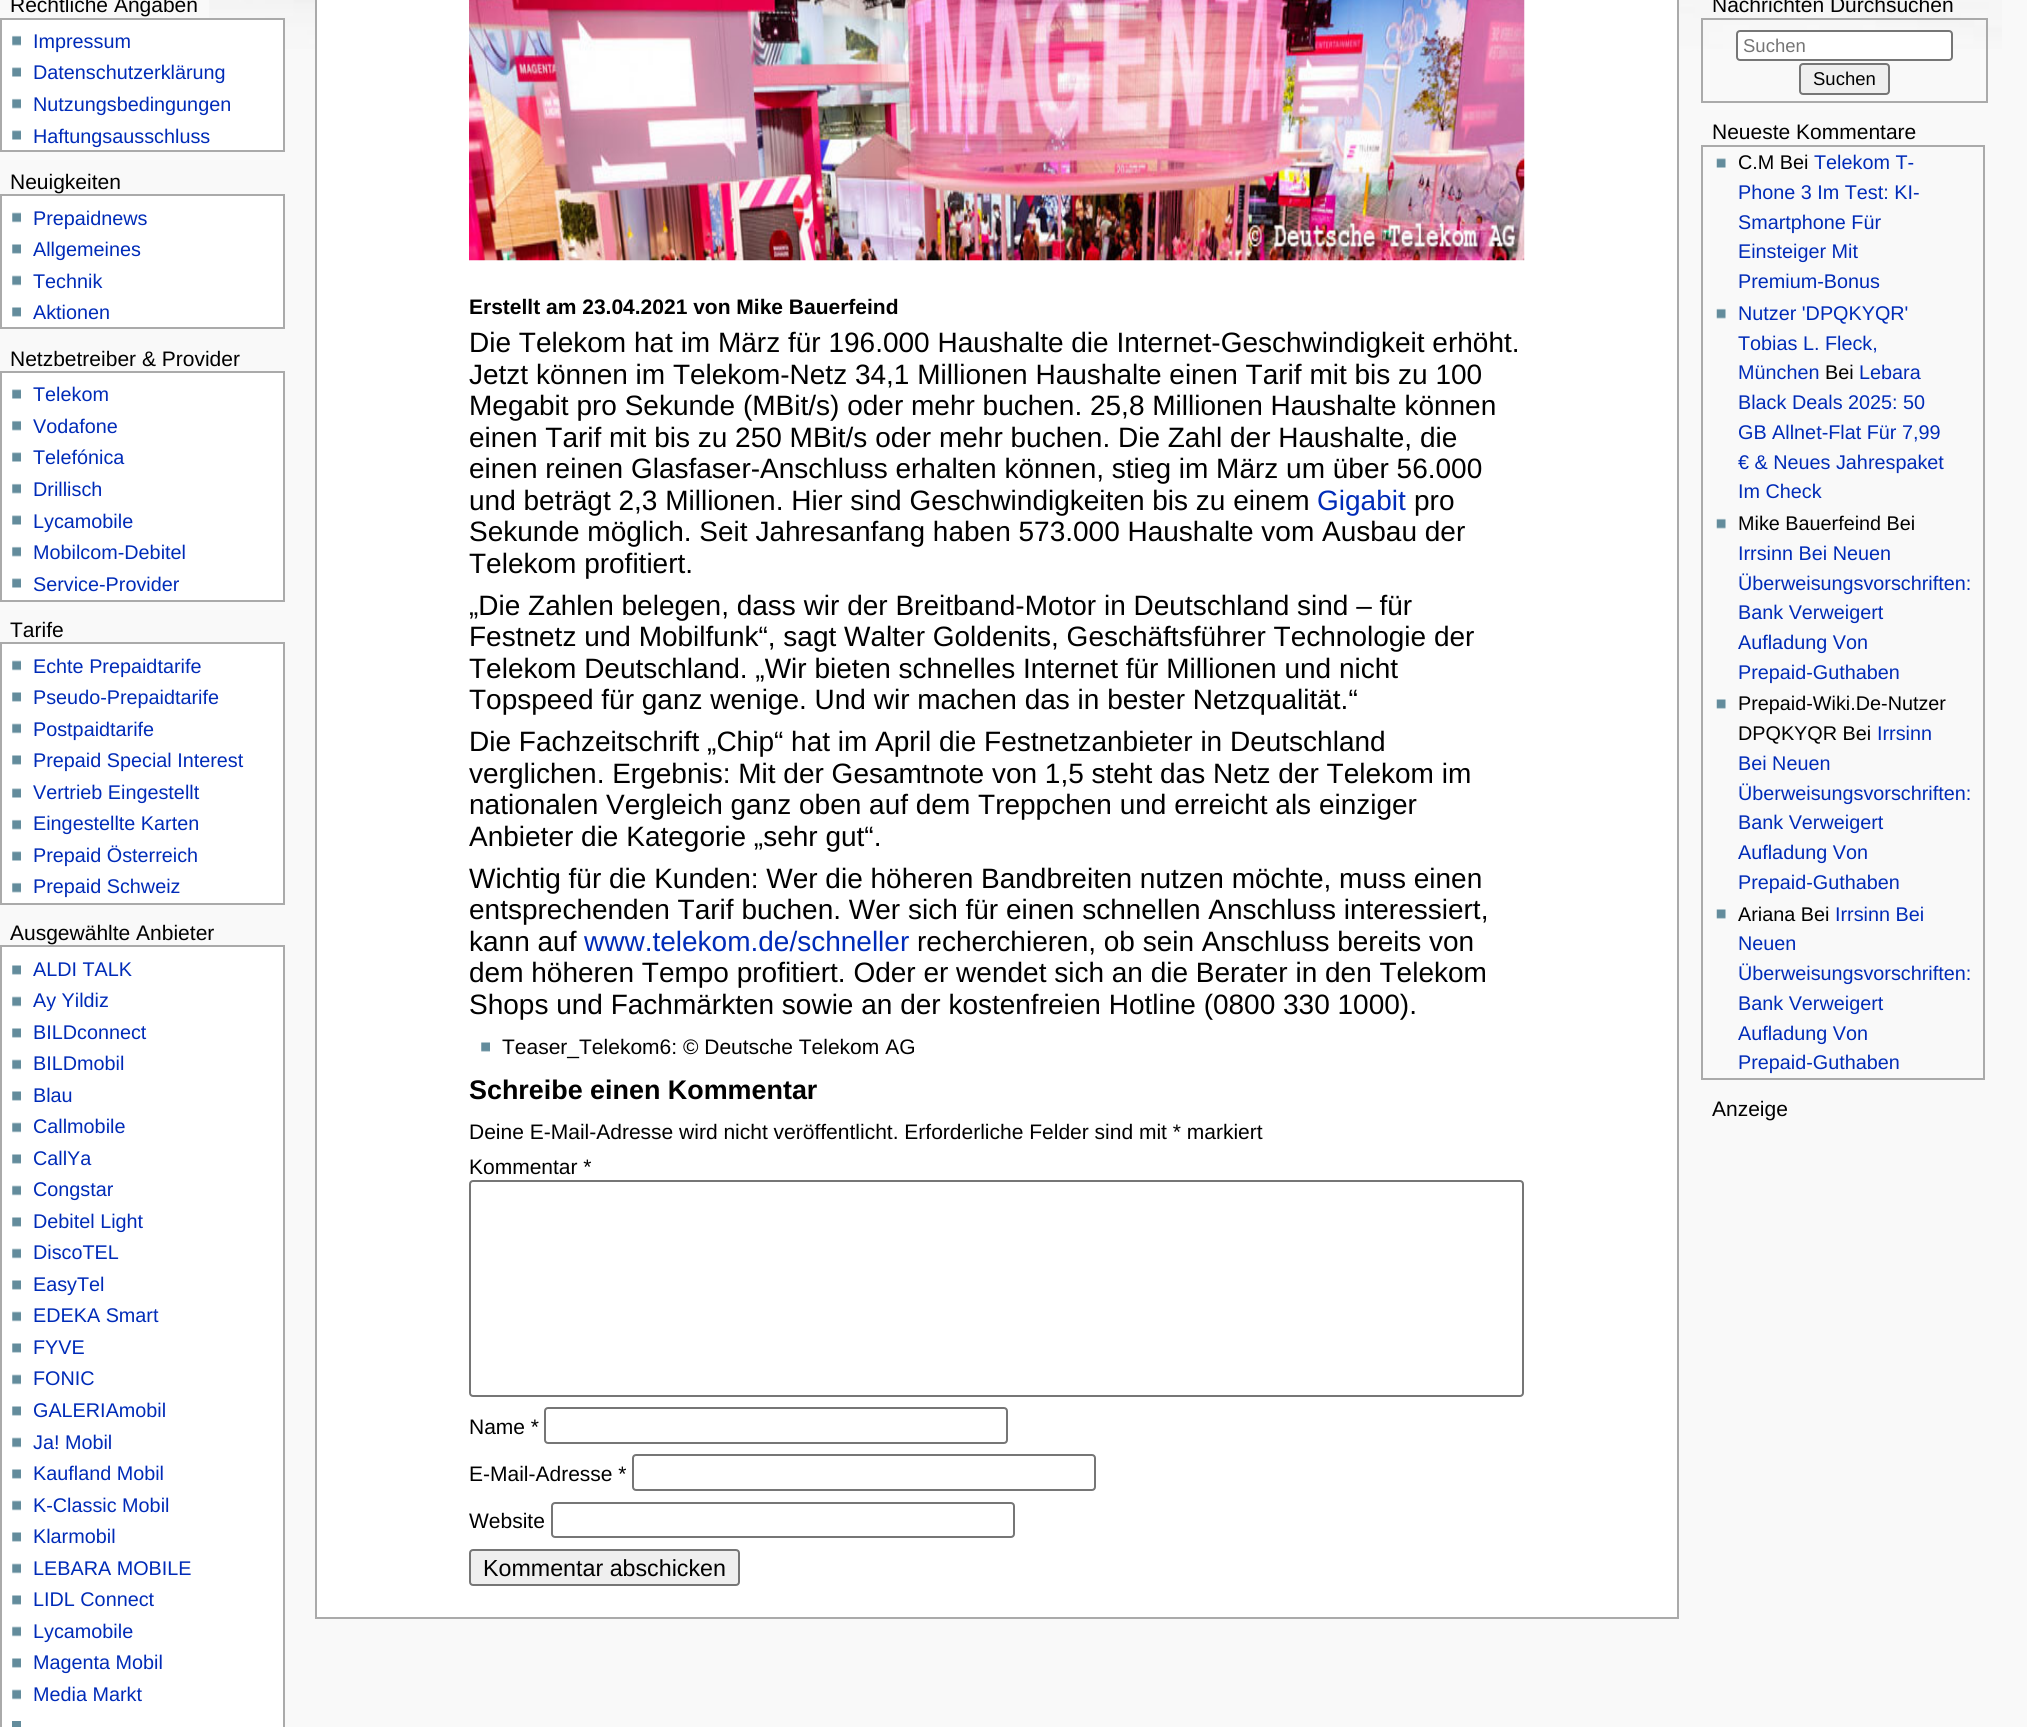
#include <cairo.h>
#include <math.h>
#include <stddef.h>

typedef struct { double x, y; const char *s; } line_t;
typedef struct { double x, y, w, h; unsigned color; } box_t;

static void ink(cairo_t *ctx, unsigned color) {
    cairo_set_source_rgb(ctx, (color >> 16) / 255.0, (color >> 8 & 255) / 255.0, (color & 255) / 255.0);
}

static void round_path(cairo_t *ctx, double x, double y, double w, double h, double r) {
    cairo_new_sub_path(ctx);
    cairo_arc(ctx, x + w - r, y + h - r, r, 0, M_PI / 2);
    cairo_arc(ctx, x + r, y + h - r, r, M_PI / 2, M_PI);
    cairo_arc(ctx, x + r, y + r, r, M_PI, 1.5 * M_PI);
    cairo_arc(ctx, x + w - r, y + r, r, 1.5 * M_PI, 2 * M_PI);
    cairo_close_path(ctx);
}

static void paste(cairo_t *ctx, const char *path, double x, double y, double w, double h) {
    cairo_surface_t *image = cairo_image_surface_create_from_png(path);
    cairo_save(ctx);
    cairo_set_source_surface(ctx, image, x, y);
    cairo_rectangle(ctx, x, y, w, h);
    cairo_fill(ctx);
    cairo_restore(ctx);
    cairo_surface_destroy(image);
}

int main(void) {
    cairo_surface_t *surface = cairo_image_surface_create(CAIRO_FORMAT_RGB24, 2027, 1727);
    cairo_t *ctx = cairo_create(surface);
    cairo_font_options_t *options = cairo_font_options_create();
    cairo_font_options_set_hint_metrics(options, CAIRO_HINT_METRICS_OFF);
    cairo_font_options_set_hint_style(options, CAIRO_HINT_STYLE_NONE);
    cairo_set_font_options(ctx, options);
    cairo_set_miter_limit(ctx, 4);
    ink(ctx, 0xF9F9F9);
    cairo_paint(ctx);
    paste(ctx, "media/1.png", 209, 0, 1793, 49);
    cairo_select_font_face(ctx, "Liberation Sans", CAIRO_FONT_SLANT_NORMAL, CAIRO_FONT_WEIGHT_NORMAL);
    cairo_set_font_size(ctx, 21);
    ink(ctx, 0x000000);
    cairo_move_to(ctx, 10, 12);
    cairo_show_text(ctx, "Rechtliche Angaben");
    ink(ctx, 0xFFFFFF);
    cairo_rectangle(ctx, 1, 19, 283, 132);
    cairo_fill_preserve(ctx);
    ink(ctx, 0xAAAAAA);
    cairo_stroke(ctx);
    paste(ctx, "media/2.png", 12, 35, 9, 11);
    cairo_set_font_size(ctx, 19.8);
    ink(ctx, 0x002BB8);
    cairo_move_to(ctx, 33, 48);
    cairo_show_text(ctx, "Impressum");
    paste(ctx, "media/3.png", 12, 67, 9, 10);
    cairo_move_to(ctx, 33, 79);
    cairo_show_text(ctx, "Datenschutzerklärung");
    paste(ctx, "media/2.png", 12, 98, 9, 11);
    cairo_move_to(ctx, 33, 111);
    cairo_show_text(ctx, "Nutzungsbedingungen");
    paste(ctx, "media/3.png", 12, 130, 9, 10);
    cairo_move_to(ctx, 33, 143);
    cairo_show_text(ctx, "Haftungsausschluss");
    cairo_set_font_size(ctx, 21);
    ink(ctx, 0x000000);
    cairo_move_to(ctx, 10, 189);
    cairo_show_text(ctx, "Neuigkeiten");
    ink(ctx, 0xFFFFFF);
    cairo_rectangle(ctx, 1, 195, 283, 133);
    cairo_fill_preserve(ctx);
    ink(ctx, 0xAAAAAA);
    cairo_stroke(ctx);
    paste(ctx, "media/4.png", 12, 212, 9, 11);
    cairo_set_font_size(ctx, 19.8);
    ink(ctx, 0x002BB8);
    cairo_move_to(ctx, 33, 225);
    cairo_show_text(ctx, "Prepaidnews");
    paste(ctx, "media/5.png", 12, 244, 9, 10);
    cairo_move_to(ctx, 33, 256);
    cairo_show_text(ctx, "Allgemeines");
    paste(ctx, "media/4.png", 12, 275, 9, 11);
    cairo_move_to(ctx, 33, 288);
    cairo_show_text(ctx, "Technik");
    paste(ctx, "media/5.png", 12, 307, 9, 10);
    cairo_move_to(ctx, 33, 319);
    cairo_show_text(ctx, "Aktionen");
    cairo_set_font_size(ctx, 21);
    ink(ctx, 0x000000);
    cairo_move_to(ctx, 10, 366);
    cairo_show_text(ctx, "Netzbetreiber & Provider");
    ink(ctx, 0xFFFFFF);
    cairo_rectangle(ctx, 1, 372, 283, 229);
    cairo_fill_preserve(ctx);
    ink(ctx, 0xAAAAAA);
    cairo_stroke(ctx);
    paste(ctx, "media/3.png", 12, 389, 9, 10);
    cairo_set_font_size(ctx, 19.8);
    ink(ctx, 0x002BB8);
    cairo_move_to(ctx, 33, 401);
    cairo_show_text(ctx, "Telekom");
    paste(ctx, "media/2.png", 12, 420, 9, 11);
    cairo_move_to(ctx, 33, 433);
    cairo_show_text(ctx, "Vodafone");
    paste(ctx, "media/3.png", 12, 452, 9, 10);
    cairo_move_to(ctx, 33, 464);
    cairo_show_text(ctx, "Telefónica");
    paste(ctx, "media/2.png", 12, 483, 9, 11);
    cairo_move_to(ctx, 33, 496);
    cairo_show_text(ctx, "Drillisch");
    paste(ctx, "media/3.png", 12, 515, 9, 10);
    cairo_move_to(ctx, 33, 528);
    cairo_show_text(ctx, "Lycamobile");
    paste(ctx, "media/2.png", 12, 546, 9, 11);
    cairo_move_to(ctx, 33, 559);
    cairo_show_text(ctx, "Mobilcom-Debitel");
    paste(ctx, "media/3.png", 12, 578, 9, 10);
    cairo_move_to(ctx, 33, 591);
    cairo_show_text(ctx, "Service-Provider");
    cairo_set_font_size(ctx, 21);
    ink(ctx, 0x000000);
    cairo_move_to(ctx, 10, 637);
    cairo_show_text(ctx, "Tarife");
    ink(ctx, 0xFFFFFF);
    cairo_rectangle(ctx, 1, 643, 283, 261);
    cairo_fill_preserve(ctx);
    ink(ctx, 0xAAAAAA);
    cairo_stroke(ctx);
    paste(ctx, "media/4.png", 12, 660, 9, 11);
    cairo_set_font_size(ctx, 19.8);
    ink(ctx, 0x002BB8);
    cairo_move_to(ctx, 33, 673);
    cairo_show_text(ctx, "Echte Prepaidtarife");
    paste(ctx, "media/5.png", 12, 692, 9, 10);
    cairo_move_to(ctx, 33, 704);
    cairo_show_text(ctx, "Pseudo-Prepaidtarife");
    paste(ctx, "media/4.png", 12, 723, 9, 11);
    cairo_move_to(ctx, 33, 736);
    cairo_show_text(ctx, "Postpaidtarife");
    paste(ctx, "media/5.png", 12, 755, 9, 10);
    cairo_move_to(ctx, 33, 767);
    cairo_show_text(ctx, "Prepaid Special Interest");
    paste(ctx, "media/3.png", 12, 788, 9, 10);
    cairo_move_to(ctx, 33, 799);
    cairo_show_text(ctx, "Vertrieb Eingestellt");
    paste(ctx, "media/2.png", 12, 819, 9, 11);
    cairo_move_to(ctx, 33, 830);
    cairo_show_text(ctx, "Eingestellte Karten");
    paste(ctx, "media/3.png", 12, 851, 9, 10);
    cairo_move_to(ctx, 33, 862);
    cairo_show_text(ctx, "Prepaid Österreich");
    paste(ctx, "media/2.png", 12, 882, 9, 11);
    cairo_move_to(ctx, 33, 893);
    cairo_show_text(ctx, "Prepaid Schweiz");
    cairo_set_font_size(ctx, 21);
    ink(ctx, 0x000000);
    cairo_move_to(ctx, 10, 940);
    cairo_show_text(ctx, "Ausgewählte Anbieter");
    ink(ctx, 0xFFFFFF);
    cairo_rectangle(ctx, 1, 946, 283, 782);
    cairo_fill_preserve(ctx);
    ink(ctx, 0xAAAAAA);
    cairo_stroke(ctx);
    paste(ctx, "media/5.png", 12, 965, 9, 10);
    cairo_set_font_size(ctx, 19.8);
    ink(ctx, 0x002BB8);
    cairo_move_to(ctx, 33, 976);
    cairo_show_text(ctx, "ALDI TALK");
    paste(ctx, "media/4.png", 12, 996, 9, 11);
    cairo_move_to(ctx, 33, 1007);
    cairo_show_text(ctx, "Ay Yildiz");
    paste(ctx, "media/5.png", 12, 1028, 9, 10);
    cairo_move_to(ctx, 33, 1039);
    cairo_show_text(ctx, "BILDconnect");
    paste(ctx, "media/4.png", 12, 1059, 9, 11);
    cairo_move_to(ctx, 33, 1070);
    cairo_show_text(ctx, "BILDmobil");
    paste(ctx, "media/5.png", 12, 1091, 9, 10);
    cairo_move_to(ctx, 33, 1102);
    cairo_show_text(ctx, "Blau");
    paste(ctx, "media/4.png", 12, 1122, 9, 11);
    cairo_move_to(ctx, 33, 1133);
    cairo_show_text(ctx, "Callmobile");
    paste(ctx, "media/5.png", 12, 1154, 9, 10);
    cairo_move_to(ctx, 33, 1165);
    cairo_show_text(ctx, "CallYa");
    paste(ctx, "media/4.png", 12, 1185, 9, 11);
    cairo_move_to(ctx, 33, 1196);
    cairo_show_text(ctx, "Congstar");
    paste(ctx, "media/5.png", 12, 1217, 9, 10);
    cairo_move_to(ctx, 33, 1228);
    cairo_show_text(ctx, "Debitel Light");
    paste(ctx, "media/4.png", 12, 1248, 9, 11);
    cairo_move_to(ctx, 33, 1259);
    cairo_show_text(ctx, "DiscoTEL");
    paste(ctx, "media/5.png", 12, 1280, 9, 10);
    cairo_move_to(ctx, 33, 1291);
    cairo_show_text(ctx, "EasyTel");
    paste(ctx, "media/4.png", 12, 1311, 9, 11);
    cairo_move_to(ctx, 33, 1322);
    cairo_show_text(ctx, "EDEKA Smart");
    paste(ctx, "media/5.png", 12, 1343, 9, 10);
    cairo_move_to(ctx, 33, 1354);
    cairo_show_text(ctx, "FYVE");
    paste(ctx, "media/4.png", 12, 1374, 9, 11);
    cairo_move_to(ctx, 33, 1385);
    cairo_show_text(ctx, "FONIC");
    paste(ctx, "media/5.png", 12, 1406, 9, 10);
    cairo_move_to(ctx, 33, 1417);
    cairo_show_text(ctx, "GALERIAmobil");
    paste(ctx, "media/4.png", 12, 1437, 9, 11);
    cairo_move_to(ctx, 33, 1449);
    cairo_show_text(ctx, "Ja! Mobil");
    paste(ctx, "media/5.png", 12, 1469, 9, 10);
    cairo_move_to(ctx, 33, 1480);
    cairo_show_text(ctx, "Kaufland Mobil");
    paste(ctx, "media/4.png", 12, 1500, 9, 11);
    cairo_move_to(ctx, 33, 1512);
    cairo_show_text(ctx, "K-Classic Mobil");
    paste(ctx, "media/5.png", 12, 1532, 9, 10);
    cairo_move_to(ctx, 33, 1543);
    cairo_show_text(ctx, "Klarmobil");
    paste(ctx, "media/4.png", 12, 1563, 9, 11);
    cairo_move_to(ctx, 33, 1575);
    cairo_show_text(ctx, "LEBARA MOBILE");
    paste(ctx, "media/5.png", 12, 1595, 9, 10);
    cairo_move_to(ctx, 33, 1606);
    cairo_show_text(ctx, "LIDL Connect");
    paste(ctx, "media/4.png", 12, 1626, 9, 11);
    cairo_move_to(ctx, 33, 1638);
    cairo_show_text(ctx, "Lycamobile");
    paste(ctx, "media/5.png", 12, 1658, 9, 10);
    cairo_move_to(ctx, 33, 1669);
    cairo_show_text(ctx, "Magenta Mobil");
    paste(ctx, "media/4.png", 12, 1689, 9, 11);
    cairo_move_to(ctx, 33, 1701);
    cairo_show_text(ctx, "Media Markt");
    {
        static const box_t items[] = {
            {12, 1721, 9, 6, 0x638C9C},
            {317, 0, 1360, 1617, 0xFFFFFF},
            {1677, 0, 2, 1619, 0xAAAAAA},
            {315, 1617, 1363, 2, 0xAAAAAA},
            {315, 0, 2, 1619, 0xAAAAAA},
        };
        for (size_t i = 0; i < sizeof items / sizeof *items; i++) {
            ink(ctx, items[i].color);
            cairo_rectangle(ctx, items[i].x, items[i].y, items[i].w, items[i].h);
            cairo_fill(ctx);
        }
    }
    paste(ctx, "media/6.png", 469, 0, 1056, 261);
    cairo_select_font_face(ctx, "Liberation Sans", CAIRO_FONT_SLANT_NORMAL, CAIRO_FONT_WEIGHT_BOLD);
    cairo_set_font_size(ctx, 21);
    ink(ctx, 0x000000);
    cairo_move_to(ctx, 469, 314);
    cairo_show_text(ctx, "Erstellt am 23.04.2021 von Mike Bauerfeind");
    cairo_select_font_face(ctx, "Liberation Sans", CAIRO_FONT_SLANT_NORMAL, CAIRO_FONT_WEIGHT_NORMAL);
    cairo_set_font_size(ctx, 28);
    {
        static const line_t items[] = {
            {469, 352, "Die Telekom hat im März für 196.000 Haushalte die Internet-Geschwindigkeit erhöht."},
            {469, 384, "Jetzt können im Telekom-Netz 34,1 Millionen Haushalte einen Tarif mit bis zu 100"},
            {469, 415, "Megabit pro Sekunde (MBit/s) oder mehr buchen. 25,8 Millionen Haushalte können"},
            {469, 447, "einen Tarif mit bis zu 250 MBit/s oder mehr buchen. Die Zahl der Haushalte, die"},
            {469, 478, "einen reinen Glasfaser-Anschluss erhalten können, stieg im März um über 56.000"},
            {469, 510, "und beträgt 2,3 Millionen. Hier sind Geschwindigkeiten bis zu einem"},
        };
        for (size_t i = 0; i < sizeof items / sizeof *items; i++) {
            cairo_move_to(ctx, items[i].x, items[i].y);
            cairo_show_text(ctx, items[i].s);
        }
    }
    ink(ctx, 0x002BB8);
    cairo_move_to(ctx, 1317, 510);
    cairo_show_text(ctx, "Gigabit");
    ink(ctx, 0x000000);
    {
        static const line_t items[] = {
            {1414, 510, "pro"},
            {469, 541, "Sekunde möglich. Seit Jahresanfang haben 573.000 Haushalte vom Ausbau der"},
            {469, 573, "Telekom profitiert."},
            {469, 615, "„Die Zahlen belegen, dass wir der Breitband-Motor in Deutschland sind – für"},
            {469, 646, "Festnetz und Mobilfunk“, sagt Walter Goldenits, Geschäftsführer Technologie der"},
            {469, 678, "Telekom Deutschland. „Wir bieten schnelles Internet für Millionen und nicht"},
            {469, 709, "Topspeed für ganz wenige. Und wir machen das in bester Netzqualität.“"},
            {469, 751, "Die Fachzeitschrift „Chip“ hat im April die Festnetzanbieter in Deutschland"},
            {469, 783, "verglichen. Ergebnis: Mit der Gesamtnote von 1,5 steht das Netz der Telekom im"},
            {469, 814, "nationalen Vergleich ganz oben auf dem Treppchen und erreicht als einziger"},
            {469, 846, "Anbieter die Kategorie „sehr gut“."},
            {469, 888, "Wichtig für die Kunden: Wer die höheren Bandbreiten nutzen möchte, muss einen"},
            {469, 919, "entsprechenden Tarif buchen. Wer sich für einen schnellen Anschluss interessiert,"},
            {469, 951, "kann auf"},
        };
        for (size_t i = 0; i < sizeof items / sizeof *items; i++) {
            cairo_move_to(ctx, items[i].x, items[i].y);
            cairo_show_text(ctx, items[i].s);
        }
    }
    ink(ctx, 0x002BB8);
    cairo_move_to(ctx, 584, 951);
    cairo_show_text(ctx, "www.telekom.de/schneller");
    ink(ctx, 0x000000);
    {
        static const line_t items[] = {
            {917, 951, "recherchieren, ob sein Anschluss bereits von"},
            {469, 982, "dem höheren Tempo profitiert. Oder er wendet sich an die Berater in den Telekom"},
            {469, 1014, "Shops und Fachmärkten sowie an der kostenfreien Hotline (0800 330 1000)."},
        };
        for (size_t i = 0; i < sizeof items / sizeof *items; i++) {
            cairo_move_to(ctx, items[i].x, items[i].y);
            cairo_show_text(ctx, items[i].s);
        }
    }
    paste(ctx, "media/5.png", 481, 1042, 9, 10);
    cairo_set_font_size(ctx, 21);
    cairo_move_to(ctx, 502, 1054);
    cairo_show_text(ctx, "Teaser_Telekom6: © Deutsche Telekom AG");
    cairo_select_font_face(ctx, "Liberation Sans", CAIRO_FONT_SLANT_NORMAL, CAIRO_FONT_WEIGHT_BOLD);
    cairo_set_font_size(ctx, 26.9);
    cairo_move_to(ctx, 469, 1099);
    cairo_show_text(ctx, "Schreibe einen Kommentar");
    cairo_select_font_face(ctx, "Liberation Sans", CAIRO_FONT_SLANT_NORMAL, CAIRO_FONT_WEIGHT_NORMAL);
    cairo_set_font_size(ctx, 21);
    cairo_move_to(ctx, 469, 1139);
    cairo_show_text(ctx, "Deine E-Mail-Adresse wird nicht veröffentlicht. Erforderliche Felder sind mit * markiert");
    cairo_move_to(ctx, 469, 1174);
    cairo_show_text(ctx, "Kommentar *");
    round_path(ctx, 470, 1181, 1053, 215, 3);
    ink(ctx, 0x767676);
    cairo_stroke(ctx);
    ink(ctx, 0x000000);
    cairo_move_to(ctx, 469, 1434);
    cairo_show_text(ctx, "Name *");
    round_path(ctx, 545, 1408, 462, 35, 3);
    ink(ctx, 0x767676);
    cairo_stroke(ctx);
    ink(ctx, 0x000000);
    cairo_move_to(ctx, 469, 1481);
    cairo_show_text(ctx, "E-Mail-Adresse *");
    round_path(ctx, 633, 1455, 462, 35, 3);
    ink(ctx, 0x767676);
    cairo_stroke(ctx);
    ink(ctx, 0x000000);
    cairo_move_to(ctx, 469, 1528);
    cairo_show_text(ctx, "Website");
    round_path(ctx, 552, 1503, 462, 34, 3);
    ink(ctx, 0x767676);
    cairo_stroke(ctx);
    ink(ctx, 0xEFEFEF);
    round_path(ctx, 470, 1550, 269, 35, 3);
    cairo_fill_preserve(ctx);
    ink(ctx, 0x767676);
    cairo_stroke(ctx);
    cairo_set_font_size(ctx, 23.25);
    ink(ctx, 0x000000);
    cairo_move_to(ctx, 483, 1576);
    cairo_show_text(ctx, "Kommentar abschicken");
    cairo_set_font_size(ctx, 21);
    cairo_move_to(ctx, 1712, 12);
    cairo_show_text(ctx, "Nachrichten Durchsuchen");
    cairo_rectangle(ctx, 1702, 19, 285, 83);
    ink(ctx, 0xAAAAAA);
    cairo_stroke(ctx);
    ink(ctx, 0xFFFFFF);
    round_path(ctx, 1737, 31, 215, 29, 3);
    cairo_fill_preserve(ctx);
    ink(ctx, 0x767676);
    cairo_stroke(ctx);
    cairo_set_font_size(ctx, 18.5);
    ink(ctx, 0x757575);
    cairo_move_to(ctx, 1743, 52);
    cairo_show_text(ctx, "Suchen");
    ink(ctx, 0xEFEFEF);
    round_path(ctx, 1800, 64, 89, 30, 3);
    cairo_fill_preserve(ctx);
    ink(ctx, 0x767676);
    cairo_stroke(ctx);
    ink(ctx, 0x000000);
    cairo_move_to(ctx, 1813, 85);
    cairo_show_text(ctx, "Suchen");
    cairo_set_font_size(ctx, 21);
    cairo_move_to(ctx, 1712, 139);
    cairo_show_text(ctx, "Neueste Kommentare");
    cairo_rectangle(ctx, 1702, 146, 282, 933);
    ink(ctx, 0xAAAAAA);
    cairo_stroke(ctx);
    paste(ctx, "media/7.png", 1716, 158, 10, 10);
    cairo_set_font_size(ctx, 19.8);
    ink(ctx, 0x000000);
    cairo_move_to(ctx, 1738, 169);
    cairo_show_text(ctx, "C.M Bei");
    ink(ctx, 0x002BB8);
    {
        static const line_t items[] = {
            {1814, 169, "Telekom T-"},
            {1738, 199, "Phone 3 Im Test: KI-"},
            {1738, 229, "Smartphone Für"},
            {1738, 258, "Einsteiger Mit"},
            {1738, 288, "Premium-Bonus"},
        };
        for (size_t i = 0; i < sizeof items / sizeof *items; i++) {
            cairo_move_to(ctx, items[i].x, items[i].y);
            cairo_show_text(ctx, items[i].s);
        }
    }
    paste(ctx, "media/8.png", 1716, 308, 10, 11);
    {
        static const line_t items[] = {
            {1738, 320, "Nutzer 'DPQKYQR'"},
            {1738, 350, "Tobias L. Fleck,"},
            {1738, 379, "München"},
        };
        for (size_t i = 0; i < sizeof items / sizeof *items; i++) {
            cairo_move_to(ctx, items[i].x, items[i].y);
            cairo_show_text(ctx, items[i].s);
        }
    }
    ink(ctx, 0x000000);
    cairo_move_to(ctx, 1825, 379);
    cairo_show_text(ctx, "Bei");
    ink(ctx, 0x002BB8);
    {
        static const line_t items[] = {
            {1859, 379, "Lebara"},
            {1738, 409, "Black Deals 2025: 50"},
            {1738, 439, "GB Allnet-Flat Für 7,99"},
            {1738, 469, "€ & Neues Jahrespaket"},
            {1738, 498, "Im Check"},
        };
        for (size_t i = 0; i < sizeof items / sizeof *items; i++) {
            cairo_move_to(ctx, items[i].x, items[i].y);
            cairo_show_text(ctx, items[i].s);
        }
    }
    paste(ctx, "media/8.png", 1716, 518, 10, 11);
    ink(ctx, 0x000000);
    cairo_move_to(ctx, 1738, 530);
    cairo_show_text(ctx, "Mike Bauerfeind Bei");
    ink(ctx, 0x002BB8);
    {
        static const line_t items[] = {
            {1738, 560, "Irrsinn Bei Neuen"},
            {1738, 590, "Überweisungsvorschriften:"},
            {1738, 619, "Bank Verweigert"},
            {1738, 649, "Aufladung Von"},
            {1738, 679, "Prepaid-Guthaben"},
        };
        for (size_t i = 0; i < sizeof items / sizeof *items; i++) {
            cairo_move_to(ctx, items[i].x, items[i].y);
            cairo_show_text(ctx, items[i].s);
        }
    }
    paste(ctx, "media/9.png", 1716, 699, 10, 10);
    ink(ctx, 0x000000);
    cairo_move_to(ctx, 1738, 710);
    cairo_show_text(ctx, "Prepaid-Wiki.De-Nutzer");
    cairo_move_to(ctx, 1738, 740);
    cairo_show_text(ctx, "DPQKYQR Bei");
    ink(ctx, 0x002BB8);
    {
        static const line_t items[] = {
            {1877, 740, "Irrsinn"},
            {1738, 770, "Bei Neuen"},
            {1738, 800, "Überweisungsvorschriften:"},
            {1738, 829, "Bank Verweigert"},
            {1738, 859, "Aufladung Von"},
            {1738, 889, "Prepaid-Guthaben"},
        };
        for (size_t i = 0; i < sizeof items / sizeof *items; i++) {
            cairo_move_to(ctx, items[i].x, items[i].y);
            cairo_show_text(ctx, items[i].s);
        }
    }
    paste(ctx, "media/9.png", 1716, 909, 10, 10);
    ink(ctx, 0x000000);
    cairo_move_to(ctx, 1738, 921);
    cairo_show_text(ctx, "Ariana Bei");
    ink(ctx, 0x002BB8);
    {
        static const line_t items[] = {
            {1835, 921, "Irrsinn Bei"},
            {1738, 950, "Neuen"},
            {1738, 980, "Überweisungsvorschriften:"},
            {1738, 1010, "Bank Verweigert"},
            {1738, 1040, "Aufladung Von"},
            {1738, 1069, "Prepaid-Guthaben"},
        };
        for (size_t i = 0; i < sizeof items / sizeof *items; i++) {
            cairo_move_to(ctx, items[i].x, items[i].y);
            cairo_show_text(ctx, items[i].s);
        }
    }
    cairo_set_font_size(ctx, 21);
    ink(ctx, 0x000000);
    cairo_move_to(ctx, 1712, 1116);
    cairo_show_text(ctx, "Anzeige");
    cairo_surface_write_to_png(surface, "image.png");
    cairo_font_options_destroy(options);
    cairo_destroy(ctx);
    cairo_surface_destroy(surface);
    return 0;
}
